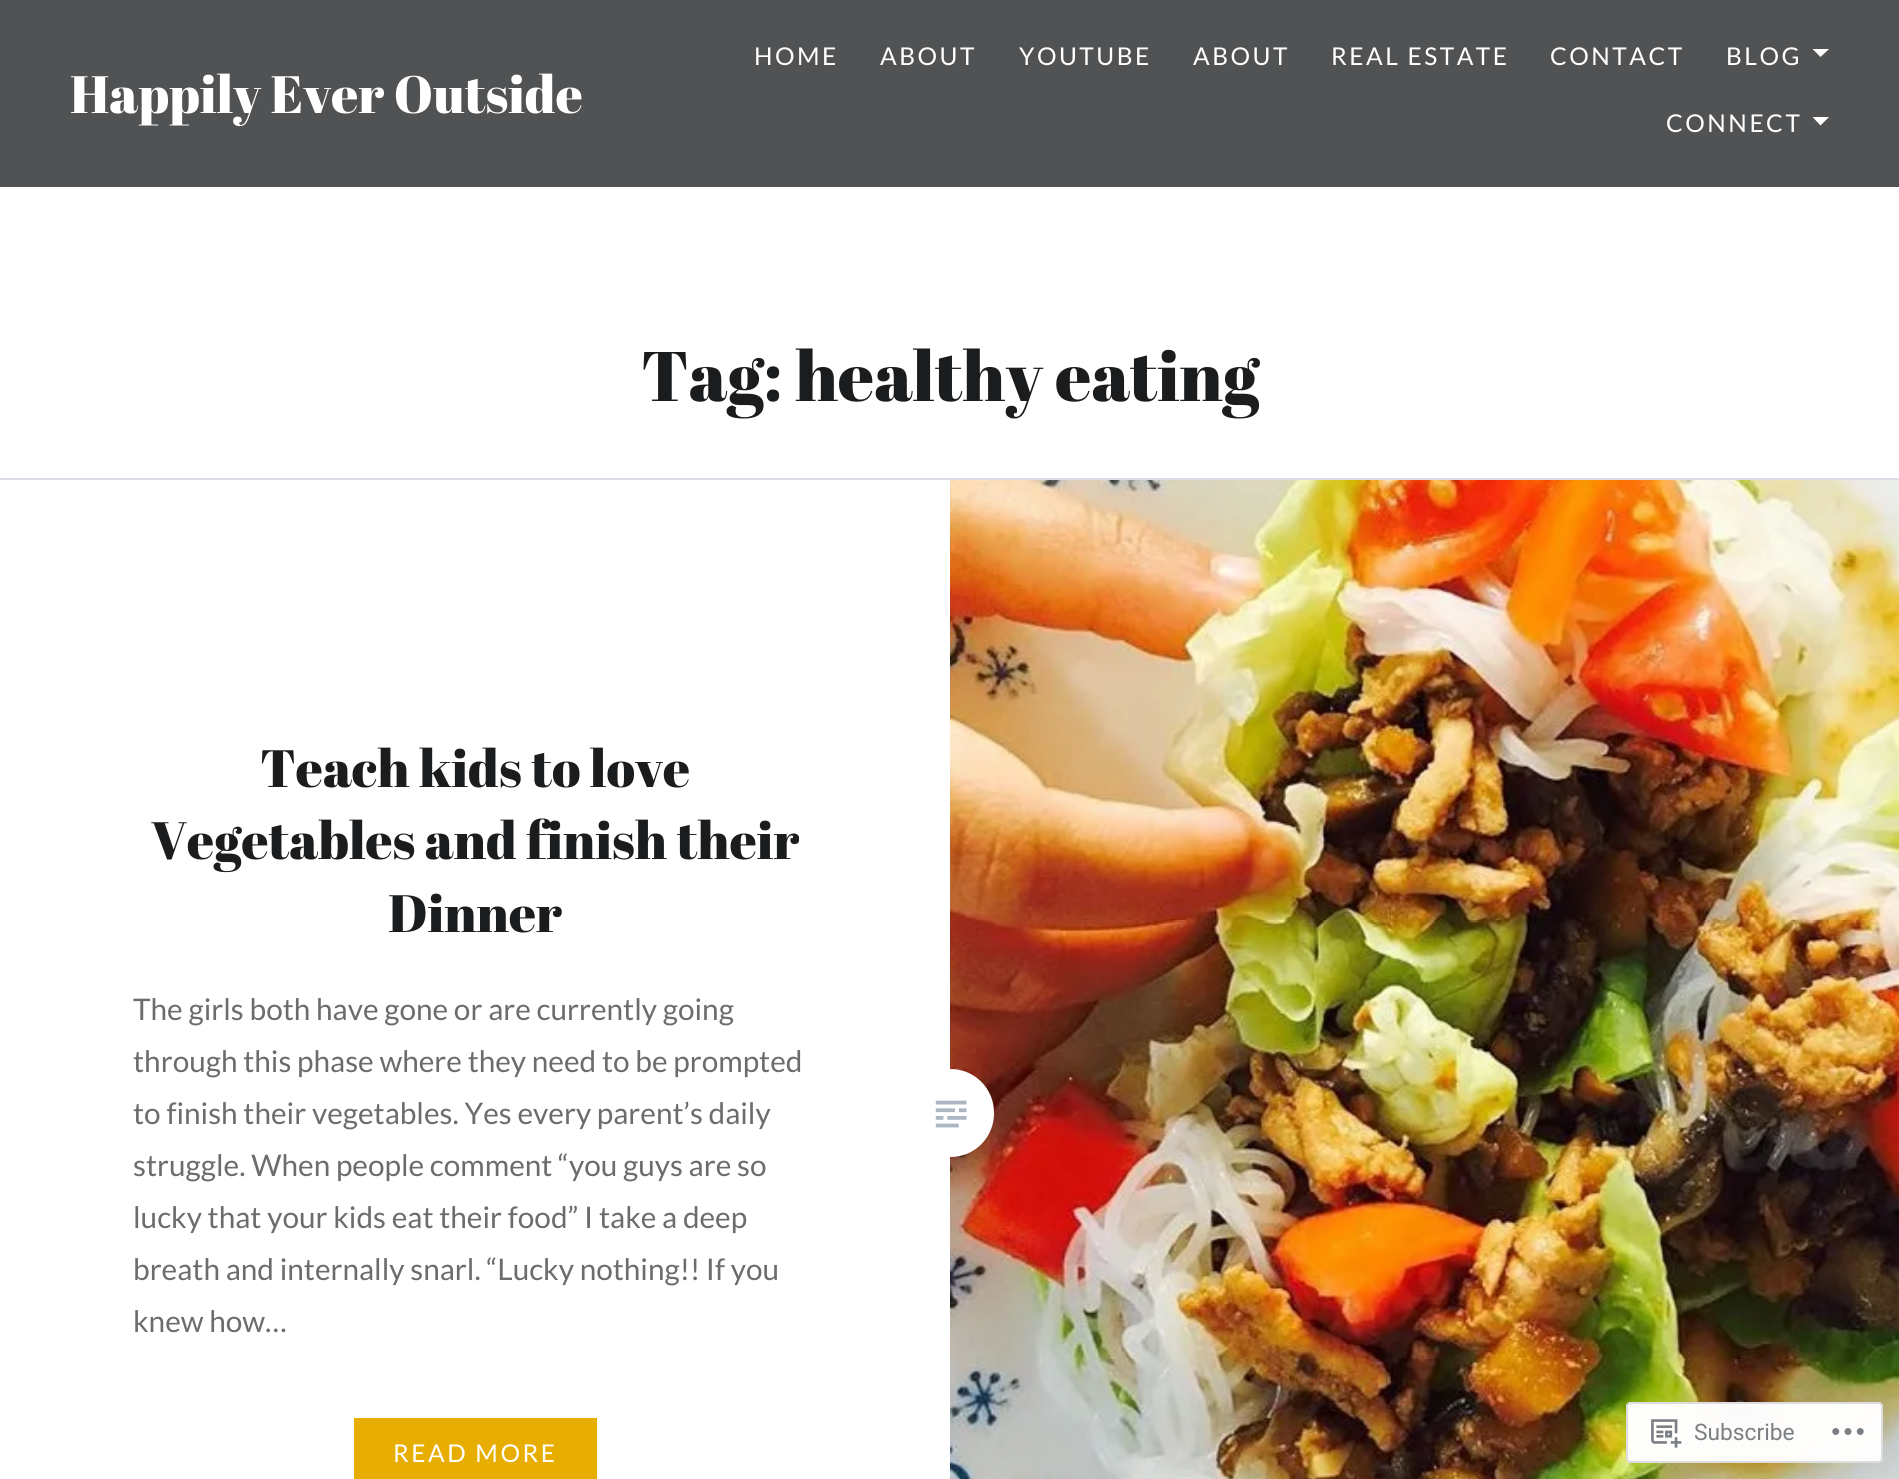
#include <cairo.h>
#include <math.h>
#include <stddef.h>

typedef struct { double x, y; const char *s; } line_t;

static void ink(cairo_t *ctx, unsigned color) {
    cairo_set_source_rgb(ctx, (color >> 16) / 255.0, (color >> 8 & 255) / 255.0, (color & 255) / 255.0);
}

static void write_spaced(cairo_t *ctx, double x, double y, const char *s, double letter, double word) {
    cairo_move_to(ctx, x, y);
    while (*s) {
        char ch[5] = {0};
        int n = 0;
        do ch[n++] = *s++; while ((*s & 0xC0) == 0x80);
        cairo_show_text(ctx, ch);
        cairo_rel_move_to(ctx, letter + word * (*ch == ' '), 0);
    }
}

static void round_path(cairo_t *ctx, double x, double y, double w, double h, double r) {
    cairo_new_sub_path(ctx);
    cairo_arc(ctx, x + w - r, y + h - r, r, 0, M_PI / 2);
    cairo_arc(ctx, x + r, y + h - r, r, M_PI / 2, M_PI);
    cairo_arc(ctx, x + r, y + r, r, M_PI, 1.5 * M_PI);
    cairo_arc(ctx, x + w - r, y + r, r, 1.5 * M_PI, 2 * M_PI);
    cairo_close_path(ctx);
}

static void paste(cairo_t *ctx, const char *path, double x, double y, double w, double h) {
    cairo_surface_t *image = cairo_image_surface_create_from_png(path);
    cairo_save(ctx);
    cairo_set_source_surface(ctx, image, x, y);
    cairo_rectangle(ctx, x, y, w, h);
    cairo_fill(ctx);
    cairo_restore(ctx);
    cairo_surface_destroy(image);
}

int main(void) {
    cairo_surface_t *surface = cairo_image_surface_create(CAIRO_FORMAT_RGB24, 1899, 1479);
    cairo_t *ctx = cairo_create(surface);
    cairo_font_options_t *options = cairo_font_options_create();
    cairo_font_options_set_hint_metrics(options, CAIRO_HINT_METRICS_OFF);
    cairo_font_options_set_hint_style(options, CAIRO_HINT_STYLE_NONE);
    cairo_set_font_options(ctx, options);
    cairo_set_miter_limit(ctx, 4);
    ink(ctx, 0xFFFFFF);
    cairo_paint(ctx);
    ink(ctx, 0x505254);
    cairo_rectangle(ctx, 0, 0, 1899, 187);
    cairo_fill(ctx);
    cairo_select_font_face(ctx, "Abril Fatface", CAIRO_FONT_SLANT_NORMAL, CAIRO_FONT_WEIGHT_NORMAL);
    cairo_set_font_size(ctx, 52.5);
    ink(ctx, 0xFFFFFF);
    cairo_move_to(ctx, 70, 113);
    cairo_show_text(ctx, "Happily Ever Outside");
    cairo_select_font_face(ctx, "Lato", CAIRO_FONT_SLANT_NORMAL, CAIRO_FONT_WEIGHT_NORMAL);
    cairo_set_font_size(ctx, 24.5);
    {
        static const line_t items[] = {
            {754, 65, "HOME"},
            {880, 65, "ABOUT"},
            {1019, 65, "YOUTUBE"},
            {1193, 65, "ABOUT"},
            {1331, 65, "REAL ESTATE"},
            {1550, 65, "CONTACT"},
            {1726, 65, "BLOG"},
        };
        for (size_t i = 0; i < sizeof items / sizeof *items; i++) {
            write_spaced(ctx, items[i].x, items[i].y, items[i].s, 2.5, 0);
        }
    }
    cairo_new_path(ctx);
    cairo_move_to(ctx, 1812.5, 49);
    cairo_line_to(ctx, 1829, 49);
    cairo_line_to(ctx, 1820.5, 57);
    cairo_close_path(ctx);
    cairo_fill(ctx);
    write_spaced(ctx, 1666, 132, "CONNECT", 2.5, 0);
    cairo_new_path(ctx);
    cairo_move_to(ctx, 1812.5, 117);
    cairo_line_to(ctx, 1829, 117);
    cairo_line_to(ctx, 1820.5, 125.5);
    cairo_close_path(ctx);
    cairo_fill(ctx);
    ink(ctx, 0xD9DFE5);
    cairo_rectangle(ctx, 0, 478, 1899, 2);
    cairo_fill(ctx);
    cairo_select_font_face(ctx, "Abril Fatface", CAIRO_FONT_SLANT_NORMAL, CAIRO_FONT_WEIGHT_NORMAL);
    cairo_set_font_size(ctx, 70);
    ink(ctx, 0x1A1C1E);
    cairo_move_to(ctx, 641, 401);
    cairo_show_text(ctx, "Tag: healthy eating");
    cairo_set_font_size(ctx, 52.5);
    {
        static const line_t items[] = {
            {260, 787, "Teach kids to love"},
            {151, 859, "Vegetables and finish their"},
            {388, 932, "Dinner"},
        };
        for (size_t i = 0; i < sizeof items / sizeof *items; i++) {
            cairo_move_to(ctx, items[i].x, items[i].y);
            cairo_show_text(ctx, items[i].s);
        }
    }
    cairo_select_font_face(ctx, "Lato", CAIRO_FONT_SLANT_NORMAL, CAIRO_FONT_WEIGHT_NORMAL);
    cairo_set_font_size(ctx, 29.75);
    ink(ctx, 0x6A6C6E);
    {
        static const line_t items[] = {
            {133, 1020, "The girls both have gone or are currently going"},
            {133, 1072, "through this phase where they need to be prompted"},
            {133, 1124, "to finish their vegetables. Yes every parent’s daily"},
            {133, 1176, "struggle. When people comment “you guys are so"},
            {133, 1228, "lucky that your kids eat their food” I take a deep"},
            {133, 1280, "breath and internally snarl. “Lucky nothing!! If you"},
            {133, 1332, "knew how…"},
        };
        for (size_t i = 0; i < sizeof items / sizeof *items; i++) {
            cairo_move_to(ctx, items[i].x, items[i].y);
            cairo_show_text(ctx, items[i].s);
        }
    }
    ink(ctx, 0xE7AE01);
    cairo_rectangle(ctx, 354, 1418, 243, 61);
    cairo_fill(ctx);
    cairo_set_font_size(ctx, 24.5);
    ink(ctx, 0xFFFFFF);
    write_spaced(ctx, 393, 1462, "READ MORE", 2.5, 0);
    paste(ctx, "media/2.png", 950, 480, 949, 999);
    round_path(ctx, 907, 1069, 87, 88, 43.5);
    cairo_fill(ctx);
    paste(ctx, "media/1.png", 935, 1100, 32, 28);
    cairo_set_source_rgba(ctx, 1, 1, 1, 0.98);
    round_path(ctx, 1626, 1402, 257, 61, 5);
    cairo_fill(ctx);
    round_path(ctx, 1627, 1403, 255, 59, 4);
    cairo_set_source_rgba(ctx, 0.863, 0.863, 0.871, 0.98);
    cairo_stroke(ctx);
    paste(ctx, "media/3.png", 1651, 1419, 31, 29);
    cairo_select_font_face(ctx, "Roboto", CAIRO_FONT_SLANT_NORMAL, CAIRO_FONT_WEIGHT_NORMAL);
    cairo_set_font_size(ctx, 22.75);
    ink(ctx, 0x7B7F84);
    cairo_move_to(ctx, 1694, 1440);
    cairo_show_text(ctx, "Subscribe");
    paste(ctx, "media/4.png", 1832, 1428, 32, 7);
    cairo_surface_write_to_png(surface, "image.png");
    cairo_font_options_destroy(options);
    cairo_destroy(ctx);
    cairo_surface_destroy(surface);
    return 0;
}
